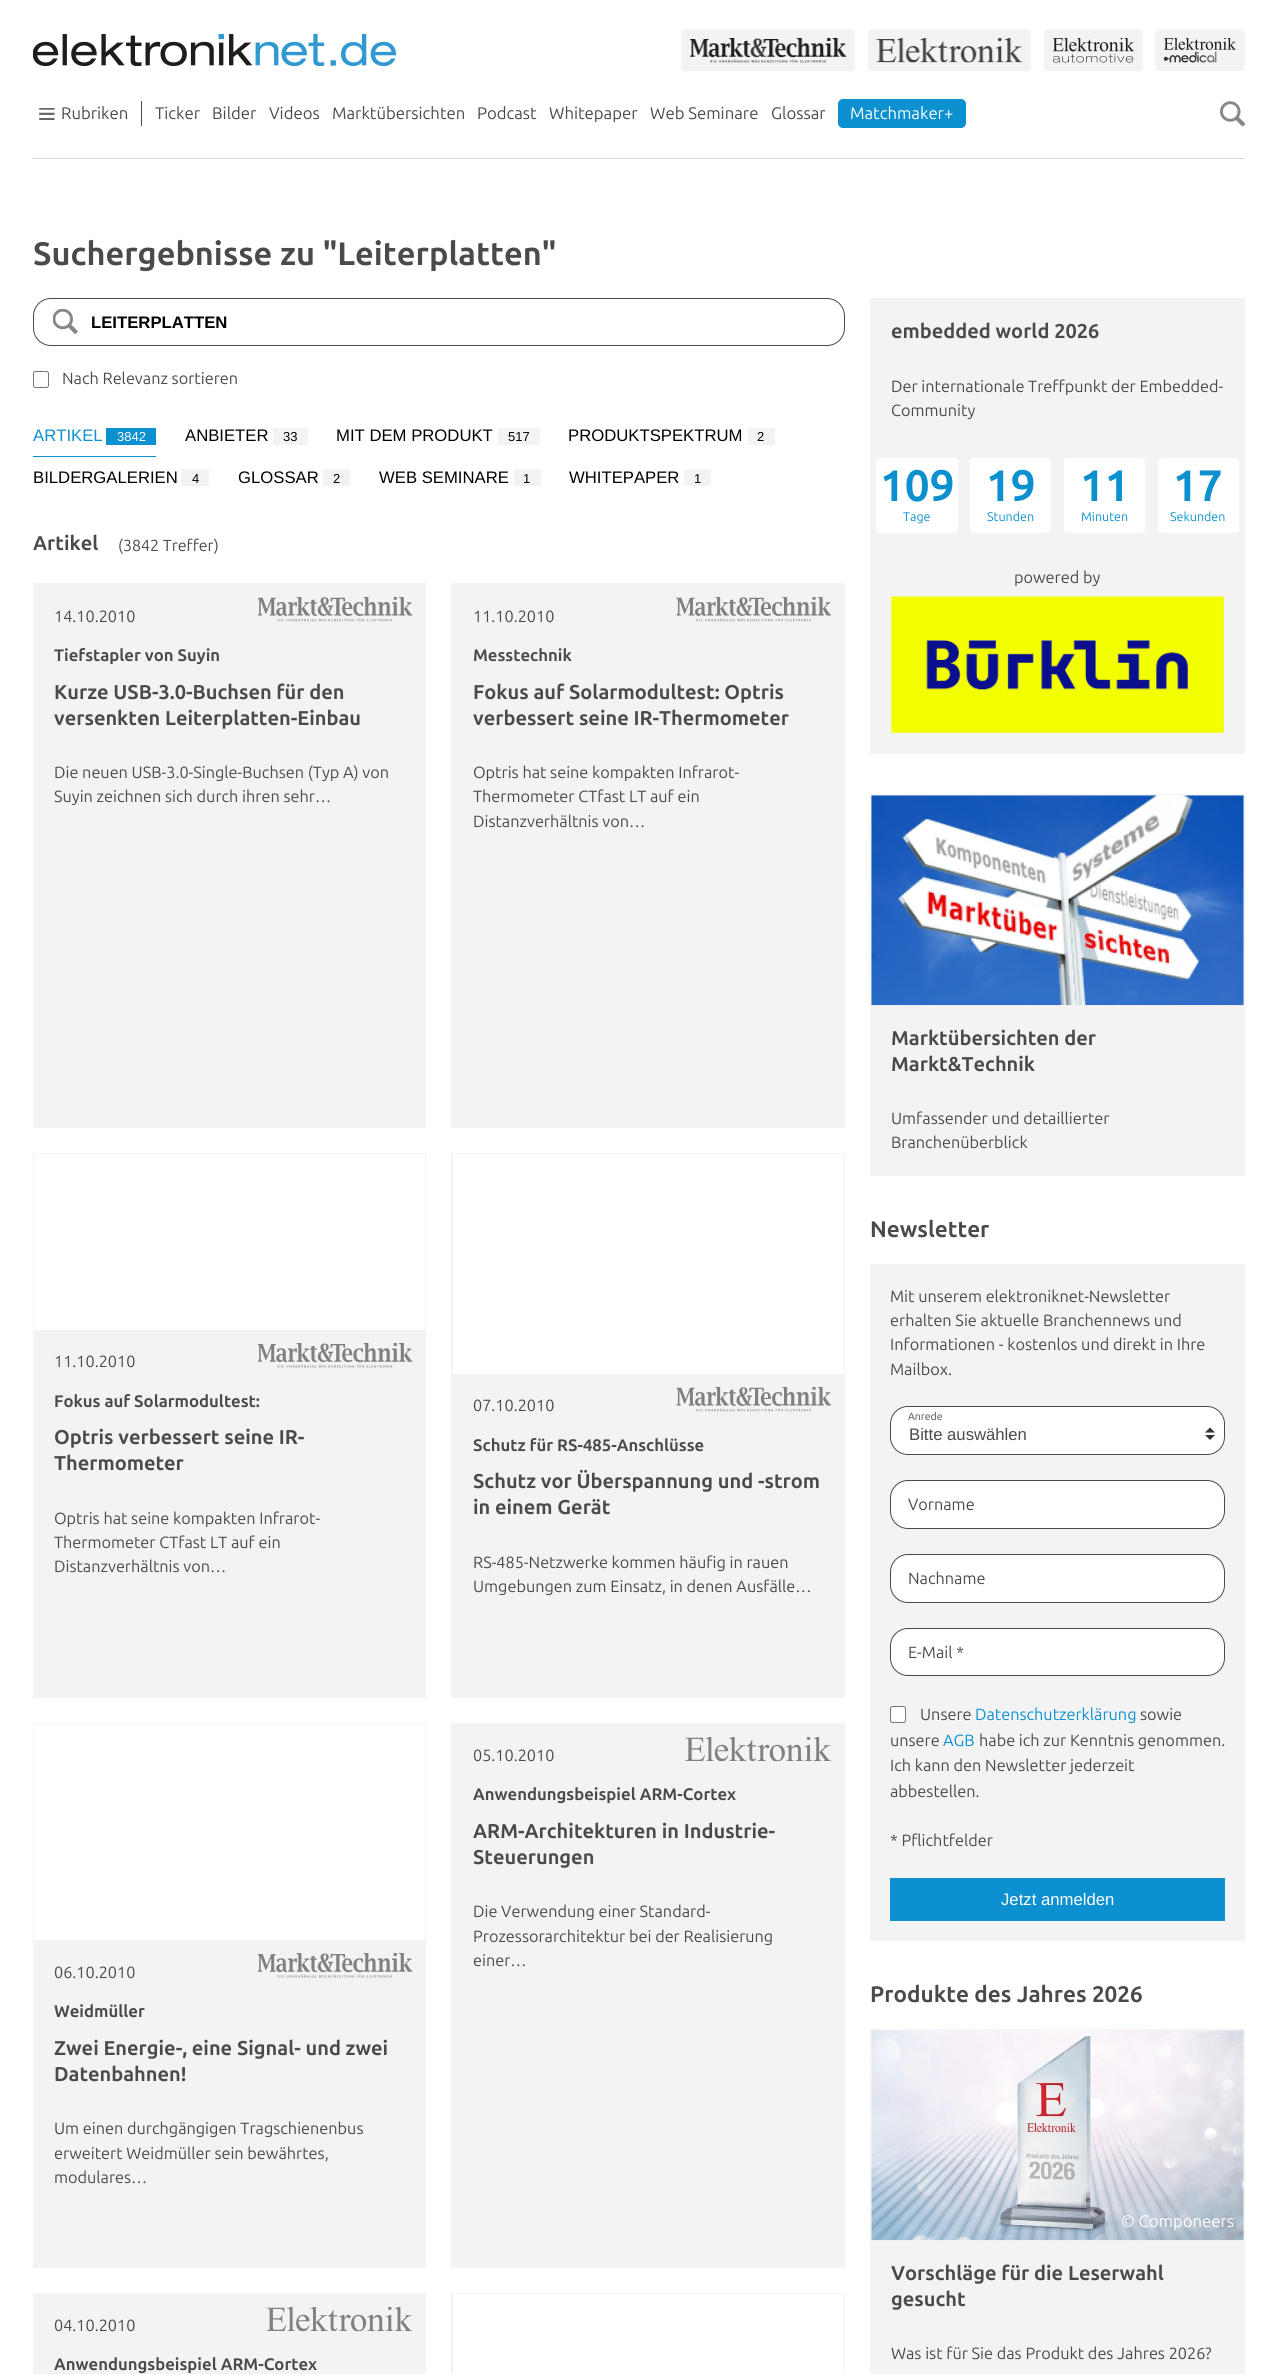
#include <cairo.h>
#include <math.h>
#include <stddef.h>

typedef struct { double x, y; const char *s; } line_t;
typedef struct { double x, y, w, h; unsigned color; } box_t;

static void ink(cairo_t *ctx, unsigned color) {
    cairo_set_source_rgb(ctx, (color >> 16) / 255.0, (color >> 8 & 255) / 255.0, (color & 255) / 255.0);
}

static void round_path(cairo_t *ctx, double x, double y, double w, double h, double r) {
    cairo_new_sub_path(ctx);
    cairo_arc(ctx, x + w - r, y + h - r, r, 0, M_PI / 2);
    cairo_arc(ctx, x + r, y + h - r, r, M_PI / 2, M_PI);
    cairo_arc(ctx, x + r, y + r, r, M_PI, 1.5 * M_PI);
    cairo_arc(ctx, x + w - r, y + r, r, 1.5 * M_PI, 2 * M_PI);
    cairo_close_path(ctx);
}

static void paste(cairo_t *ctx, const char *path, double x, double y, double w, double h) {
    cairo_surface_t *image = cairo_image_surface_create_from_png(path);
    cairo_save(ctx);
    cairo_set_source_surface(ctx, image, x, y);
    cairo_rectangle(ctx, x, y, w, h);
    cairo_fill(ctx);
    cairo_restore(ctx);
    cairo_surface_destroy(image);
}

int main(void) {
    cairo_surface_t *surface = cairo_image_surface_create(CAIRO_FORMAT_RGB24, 1277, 2374);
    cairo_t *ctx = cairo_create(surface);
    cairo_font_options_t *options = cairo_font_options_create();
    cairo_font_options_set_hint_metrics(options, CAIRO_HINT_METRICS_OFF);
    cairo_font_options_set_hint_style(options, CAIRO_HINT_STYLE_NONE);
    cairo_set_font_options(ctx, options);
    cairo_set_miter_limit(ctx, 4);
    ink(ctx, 0xFFFFFF);
    cairo_paint(ctx);
    ink(ctx, 0xDADADA);
    cairo_rectangle(ctx, 33, 158, 1212, 1);
    cairo_fill(ctx);
    paste(ctx, "media/1.png", 33, 34, 363, 32);
    ink(ctx, 0xF3F3F3);
    round_path(ctx, 681.5, 29.5, 173, 41, 3.5);
    cairo_fill_preserve(ctx);
    cairo_set_line_width(ctx, 1);
    cairo_stroke(ctx);
    paste(ctx, "media/2.png", 690, 38, 157, 25);
    round_path(ctx, 868.5, 29.5, 162, 41, 3.5);
    cairo_fill_preserve(ctx);
    cairo_stroke(ctx);
    paste(ctx, "media/3.png", 876, 38, 147, 25);
    round_path(ctx, 1044.5, 29.5, 98, 41, 3.5);
    cairo_fill_preserve(ctx);
    cairo_stroke(ctx);
    paste(ctx, "media/4.png", 1053, 38, 81, 25);
    round_path(ctx, 1155.5, 29.5, 89, 41, 3.5);
    cairo_fill_preserve(ctx);
    cairo_stroke(ctx);
    paste(ctx, "media/5.png", 1164, 38, 72, 25);
    ink(ctx, 0x4A4A49);
    cairo_rectangle(ctx, 141, 101, 1, 25);
    cairo_fill(ctx);
    paste(ctx, "media/6.png", 39, 108, 16, 12);
    cairo_select_font_face(ctx, "Ubuntu", CAIRO_FONT_SLANT_NORMAL, CAIRO_FONT_WEIGHT_NORMAL);
    cairo_set_font_size(ctx, 16.7);
    {
        static const line_t items[] = {
            {61, 119, "Rubriken"},
            {155, 119, "Ticker"},
            {212, 119, "Bilder"},
            {269, 119, "Videos"},
            {332, 119, "Marktübersichten"},
            {477, 119, "Podcast"},
            {549, 119, "Whitepaper"},
            {650, 119, "Web Seminare"},
            {771, 119, "Glossar"},
        };
        for (size_t i = 0; i < sizeof items / sizeof *items; i++) {
            cairo_move_to(ctx, items[i].x, items[i].y);
            cairo_show_text(ctx, items[i].s);
        }
    }
    ink(ctx, 0x0C90D0);
    round_path(ctx, 838, 99, 128, 29, 5);
    cairo_fill(ctx);
    ink(ctx, 0xFFFFFF);
    cairo_move_to(ctx, 850, 119);
    cairo_show_text(ctx, "Matchmaker+");
    paste(ctx, "media/7.png", 1220, 101, 25, 25);
    cairo_select_font_face(ctx, "Ubuntu", CAIRO_FONT_SLANT_NORMAL, CAIRO_FONT_WEIGHT_BOLD);
    cairo_set_font_size(ctx, 32.5);
    ink(ctx, 0x4A4A49);
    cairo_move_to(ctx, 33, 265);
    cairo_show_text(ctx, "Suchergebnisse zu \"Leiterplatten\"");
    round_path(ctx, 33.5, 298.5, 811, 47, 17.5);
    cairo_stroke(ctx);
    paste(ctx, "media/8.png", 53, 309, 25, 25);
    cairo_select_font_face(ctx, "Liberation Sans", CAIRO_FONT_SLANT_NORMAL, CAIRO_FONT_WEIGHT_BOLD);
    cairo_set_font_size(ctx, 16.7);
    ink(ctx, 0x000000);
    cairo_move_to(ctx, 91, 328);
    cairo_show_text(ctx, "LEITERPLATTEN");
    round_path(ctx, 33.5, 371.5, 15, 16, 2);
    ink(ctx, 0x767676);
    cairo_stroke(ctx);
    cairo_select_font_face(ctx, "Ubuntu", CAIRO_FONT_SLANT_NORMAL, CAIRO_FONT_WEIGHT_NORMAL);
    cairo_set_font_size(ctx, 16.25);
    ink(ctx, 0x4A4A49);
    cairo_move_to(ctx, 62, 384);
    cairo_show_text(ctx, "Nach Relevanz sortieren");
    ink(ctx, 0x0C90D0);
    cairo_rectangle(ctx, 33, 456, 123, 1);
    cairo_fill(ctx);
    cairo_select_font_face(ctx, "Liberation Sans", CAIRO_FONT_SLANT_NORMAL, CAIRO_FONT_WEIGHT_NORMAL);
    cairo_set_font_size(ctx, 16.7);
    cairo_move_to(ctx, 33, 441);
    cairo_show_text(ctx, "ARTIKEL");
    cairo_rectangle(ctx, 106, 428, 50, 17);
    cairo_fill(ctx);
    cairo_set_font_size(ctx, 13);
    ink(ctx, 0xFFFFFF);
    cairo_move_to(ctx, 117, 441);
    cairo_show_text(ctx, "3842");
    cairo_set_font_size(ctx, 16.7);
    ink(ctx, 0x000000);
    cairo_move_to(ctx, 185, 441);
    cairo_show_text(ctx, "ANBIETER");
    ink(ctx, 0xF3F3F3);
    cairo_rectangle(ctx, 273, 428, 35, 17);
    cairo_fill(ctx);
    cairo_set_font_size(ctx, 13);
    ink(ctx, 0x000000);
    cairo_move_to(ctx, 283, 441);
    cairo_show_text(ctx, "33");
    cairo_set_font_size(ctx, 16.7);
    cairo_move_to(ctx, 336, 441);
    cairo_show_text(ctx, "MIT DEM PRODUKT");
    ink(ctx, 0xF3F3F3);
    cairo_rectangle(ctx, 498, 428, 42, 17);
    cairo_fill(ctx);
    cairo_set_font_size(ctx, 13);
    ink(ctx, 0x000000);
    cairo_move_to(ctx, 508, 441);
    cairo_show_text(ctx, "517");
    cairo_set_font_size(ctx, 16.7);
    cairo_move_to(ctx, 568, 441);
    cairo_show_text(ctx, "PRODUKTSPEKTRUM");
    ink(ctx, 0xF3F3F3);
    cairo_rectangle(ctx, 748, 428, 27, 17);
    cairo_fill(ctx);
    cairo_set_font_size(ctx, 13);
    ink(ctx, 0x000000);
    cairo_move_to(ctx, 757, 441);
    cairo_show_text(ctx, "2");
    cairo_set_font_size(ctx, 16.7);
    cairo_move_to(ctx, 33, 483);
    cairo_show_text(ctx, "BILDERGALERIEN");
    ink(ctx, 0xF3F3F3);
    cairo_rectangle(ctx, 181, 469, 28, 17);
    cairo_fill(ctx);
    cairo_set_font_size(ctx, 13);
    ink(ctx, 0x000000);
    cairo_move_to(ctx, 192, 483);
    cairo_show_text(ctx, "4");
    cairo_set_font_size(ctx, 16.7);
    cairo_move_to(ctx, 238, 483);
    cairo_show_text(ctx, "GLOSSAR");
    ink(ctx, 0xF3F3F3);
    cairo_rectangle(ctx, 323, 469, 27, 17);
    cairo_fill(ctx);
    cairo_set_font_size(ctx, 13);
    ink(ctx, 0x000000);
    cairo_move_to(ctx, 333, 483);
    cairo_show_text(ctx, "2");
    cairo_set_font_size(ctx, 16.7);
    cairo_move_to(ctx, 379, 483);
    cairo_show_text(ctx, "WEB SEMINARE");
    ink(ctx, 0xF3F3F3);
    cairo_rectangle(ctx, 514, 469, 27, 17);
    cairo_fill(ctx);
    cairo_set_font_size(ctx, 13);
    ink(ctx, 0x000000);
    cairo_move_to(ctx, 523, 483);
    cairo_show_text(ctx, "1");
    cairo_set_font_size(ctx, 16.7);
    cairo_move_to(ctx, 569, 483);
    cairo_show_text(ctx, "WHITEPAPER");
    ink(ctx, 0xF3F3F3);
    cairo_rectangle(ctx, 684, 469, 27, 17);
    cairo_fill(ctx);
    cairo_set_font_size(ctx, 13);
    ink(ctx, 0x000000);
    cairo_move_to(ctx, 694, 483);
    cairo_show_text(ctx, "1");
    cairo_select_font_face(ctx, "Ubuntu", CAIRO_FONT_SLANT_NORMAL, CAIRO_FONT_WEIGHT_BOLD);
    cairo_set_font_size(ctx, 20);
    ink(ctx, 0x4A4A49);
    cairo_move_to(ctx, 33, 550);
    cairo_show_text(ctx, "Artikel");
    cairo_select_font_face(ctx, "Ubuntu", CAIRO_FONT_SLANT_NORMAL, CAIRO_FONT_WEIGHT_NORMAL);
    cairo_set_font_size(ctx, 16);
    cairo_move_to(ctx, 118, 551);
    cairo_show_text(ctx, "(3842 Treffer)");
    ink(ctx, 0xF3F3F3);
    cairo_rectangle(ctx, 33, 583, 393, 545);
    cairo_fill(ctx);
    cairo_set_font_size(ctx, 16.25);
    ink(ctx, 0x4A4A49);
    cairo_move_to(ctx, 54, 622);
    cairo_show_text(ctx, "14.10.2010");
    paste(ctx, "media/9.png", 258, 597, 155, 25);
    cairo_select_font_face(ctx, "Ubuntu", CAIRO_FONT_SLANT_NORMAL, CAIRO_FONT_WEIGHT_BOLD);
    cairo_set_font_size(ctx, 16.7);
    cairo_move_to(ctx, 54, 661);
    cairo_show_text(ctx, "Tiefstapler von Suyin");
    cairo_set_font_size(ctx, 20);
    cairo_move_to(ctx, 54, 699);
    cairo_show_text(ctx, "Kurze USB-3.0-Buchsen für den");
    cairo_move_to(ctx, 54, 725);
    cairo_show_text(ctx, "versenkten Leiterplatten-Einbau");
    cairo_select_font_face(ctx, "Ubuntu", CAIRO_FONT_SLANT_NORMAL, CAIRO_FONT_WEIGHT_NORMAL);
    cairo_set_font_size(ctx, 16.25);
    cairo_move_to(ctx, 54, 778);
    cairo_show_text(ctx, "Die neuen USB-3.0-Single-Buchsen (Typ A) von");
    cairo_move_to(ctx, 54, 802);
    cairo_show_text(ctx, "Suyin zeichnen sich durch ihren sehr…");
    ink(ctx, 0xF3F3F3);
    cairo_rectangle(ctx, 451, 583, 394, 545);
    cairo_fill(ctx);
    ink(ctx, 0x4A4A49);
    cairo_move_to(ctx, 473, 622);
    cairo_show_text(ctx, "11.10.2010");
    paste(ctx, "media/10.png", 676, 597, 155, 25);
    cairo_select_font_face(ctx, "Ubuntu", CAIRO_FONT_SLANT_NORMAL, CAIRO_FONT_WEIGHT_BOLD);
    cairo_set_font_size(ctx, 16.7);
    cairo_move_to(ctx, 473, 661);
    cairo_show_text(ctx, "Messtechnik");
    cairo_set_font_size(ctx, 20);
    cairo_move_to(ctx, 473, 699);
    cairo_show_text(ctx, "Fokus auf Solarmodultest: Optris");
    cairo_move_to(ctx, 473, 725);
    cairo_show_text(ctx, "verbessert seine IR-Thermometer");
    cairo_select_font_face(ctx, "Ubuntu", CAIRO_FONT_SLANT_NORMAL, CAIRO_FONT_WEIGHT_NORMAL);
    cairo_set_font_size(ctx, 16.25);
    {
        static const line_t items[] = {
            {473, 778, "Optris hat seine kompakten Infrarot-"},
            {473, 802, "Thermometer CTfast LT auf ein"},
            {473, 827, "Distanzverhältnis von…"},
        };
        for (size_t i = 0; i < sizeof items / sizeof *items; i++) {
            cairo_move_to(ctx, items[i].x, items[i].y);
            cairo_show_text(ctx, items[i].s);
        }
    }
    ink(ctx, 0xF3F3F3);
    cairo_rectangle(ctx, 33, 1153, 393, 545);
    cairo_fill(ctx);
    ink(ctx, 0xFFFFFF);
    cairo_rectangle(ctx, 34, 1154, 391, 176);
    cairo_fill(ctx);
    ink(ctx, 0x4A4A49);
    cairo_move_to(ctx, 54, 1367);
    cairo_show_text(ctx, "11.10.2010");
    paste(ctx, "media/11.png", 258, 1343, 155, 25);
    cairo_select_font_face(ctx, "Ubuntu", CAIRO_FONT_SLANT_NORMAL, CAIRO_FONT_WEIGHT_BOLD);
    cairo_set_font_size(ctx, 16.7);
    cairo_move_to(ctx, 54, 1407);
    cairo_show_text(ctx, "Fokus auf Solarmodultest:");
    cairo_set_font_size(ctx, 20);
    cairo_move_to(ctx, 54, 1444);
    cairo_show_text(ctx, "Optris verbessert seine IR-");
    cairo_move_to(ctx, 54, 1470);
    cairo_show_text(ctx, "Thermometer");
    cairo_select_font_face(ctx, "Ubuntu", CAIRO_FONT_SLANT_NORMAL, CAIRO_FONT_WEIGHT_NORMAL);
    cairo_set_font_size(ctx, 16.25);
    {
        static const line_t items[] = {
            {54, 1524, "Optris hat seine kompakten Infrarot-"},
            {54, 1548, "Thermometer CTfast LT auf ein"},
            {54, 1572, "Distanzverhältnis von…"},
        };
        for (size_t i = 0; i < sizeof items / sizeof *items; i++) {
            cairo_move_to(ctx, items[i].x, items[i].y);
            cairo_show_text(ctx, items[i].s);
        }
    }
    ink(ctx, 0xF3F3F3);
    cairo_rectangle(ctx, 451, 1153, 394, 545);
    cairo_fill(ctx);
    ink(ctx, 0xFFFFFF);
    cairo_rectangle(ctx, 453, 1154, 391, 220);
    cairo_fill(ctx);
    ink(ctx, 0x4A4A49);
    cairo_move_to(ctx, 473, 1411);
    cairo_show_text(ctx, "07.10.2010");
    paste(ctx, "media/12.png", 676, 1387, 155, 25);
    cairo_select_font_face(ctx, "Ubuntu", CAIRO_FONT_SLANT_NORMAL, CAIRO_FONT_WEIGHT_BOLD);
    cairo_set_font_size(ctx, 16.7);
    cairo_move_to(ctx, 473, 1451);
    cairo_show_text(ctx, "Schutz für RS-485-Anschlüsse");
    cairo_set_font_size(ctx, 20);
    cairo_move_to(ctx, 473, 1488);
    cairo_show_text(ctx, "Schutz vor Überspannung und -strom");
    cairo_move_to(ctx, 473, 1514);
    cairo_show_text(ctx, "in einem Gerät");
    cairo_select_font_face(ctx, "Ubuntu", CAIRO_FONT_SLANT_NORMAL, CAIRO_FONT_WEIGHT_NORMAL);
    cairo_set_font_size(ctx, 16.25);
    cairo_move_to(ctx, 473, 1568);
    cairo_show_text(ctx, "RS-485-Netzwerke kommen häufig in rauen");
    cairo_move_to(ctx, 473, 1592);
    cairo_show_text(ctx, "Umgebungen zum Einsatz, in denen Ausfälle…");
    ink(ctx, 0xF3F3F3);
    cairo_rectangle(ctx, 451, 1723, 394, 545);
    cairo_fill(ctx);
    ink(ctx, 0x4A4A49);
    cairo_move_to(ctx, 473, 1761);
    cairo_show_text(ctx, "05.10.2010");
    paste(ctx, "media/13.png", 685, 1737, 146, 25);
    cairo_select_font_face(ctx, "Ubuntu", CAIRO_FONT_SLANT_NORMAL, CAIRO_FONT_WEIGHT_BOLD);
    cairo_set_font_size(ctx, 16.7);
    cairo_move_to(ctx, 473, 1800);
    cairo_show_text(ctx, "Anwendungsbeispiel ARM-Cortex");
    cairo_set_font_size(ctx, 20);
    cairo_move_to(ctx, 473, 1838);
    cairo_show_text(ctx, "ARM-Architekturen in Industrie-");
    cairo_move_to(ctx, 473, 1864);
    cairo_show_text(ctx, "Steuerungen");
    cairo_select_font_face(ctx, "Ubuntu", CAIRO_FONT_SLANT_NORMAL, CAIRO_FONT_WEIGHT_NORMAL);
    cairo_set_font_size(ctx, 16.25);
    {
        static const line_t items[] = {
            {473, 1917, "Die Verwendung einer Standard-"},
            {473, 1942, "Prozessorarchitektur bei der Realisierung"},
            {473, 1966, "einer…"},
        };
        for (size_t i = 0; i < sizeof items / sizeof *items; i++) {
            cairo_move_to(ctx, items[i].x, items[i].y);
            cairo_show_text(ctx, items[i].s);
        }
    }
    ink(ctx, 0xF3F3F3);
    cairo_rectangle(ctx, 33, 1723, 393, 545);
    cairo_fill(ctx);
    ink(ctx, 0xFFFFFF);
    cairo_rectangle(ctx, 34, 1724, 391, 216);
    cairo_fill(ctx);
    ink(ctx, 0x4A4A49);
    cairo_move_to(ctx, 54, 1978);
    cairo_show_text(ctx, "06.10.2010");
    paste(ctx, "media/11.png", 258, 1953, 155, 25);
    cairo_select_font_face(ctx, "Ubuntu", CAIRO_FONT_SLANT_NORMAL, CAIRO_FONT_WEIGHT_BOLD);
    cairo_set_font_size(ctx, 16.7);
    cairo_move_to(ctx, 54, 2017);
    cairo_show_text(ctx, "Weidmüller");
    cairo_set_font_size(ctx, 20);
    cairo_move_to(ctx, 54, 2055);
    cairo_show_text(ctx, "Zwei Energie-, eine Signal- und zwei");
    cairo_move_to(ctx, 54, 2081);
    cairo_show_text(ctx, "Datenbahnen!");
    cairo_select_font_face(ctx, "Ubuntu", CAIRO_FONT_SLANT_NORMAL, CAIRO_FONT_WEIGHT_NORMAL);
    cairo_set_font_size(ctx, 16.25);
    {
        static const line_t items[] = {
            {54, 2134, "Um einen durchgängigen Tragschienenbus"},
            {54, 2159, "erweitert Weidmüller sein bewährtes,"},
            {54, 2183, "modulares…"},
        };
        for (size_t i = 0; i < sizeof items / sizeof *items; i++) {
            cairo_move_to(ctx, items[i].x, items[i].y);
            cairo_show_text(ctx, items[i].s);
        }
    }
    ink(ctx, 0xF3F3F3);
    cairo_rectangle(ctx, 33, 2293, 393, 81);
    cairo_fill(ctx);
    ink(ctx, 0x4A4A49);
    cairo_move_to(ctx, 54, 2331);
    cairo_show_text(ctx, "04.10.2010");
    paste(ctx, "media/14.png", 266, 2307, 147, 25);
    cairo_select_font_face(ctx, "Ubuntu", CAIRO_FONT_SLANT_NORMAL, CAIRO_FONT_WEIGHT_BOLD);
    cairo_set_font_size(ctx, 16.7);
    cairo_move_to(ctx, 54, 2370);
    cairo_show_text(ctx, "Anwendungsbeispiel ARM-Cortex");
    {
        static const box_t items[] = {
            {451, 2293, 394, 81, 0xF3F3F3},
            {453, 2294, 391, 80, 0xFFFFFF},
            {870, 298, 375, 456, 0xF3F3F3},
        };
        for (size_t i = 0; i < sizeof items / sizeof *items; i++) {
            ink(ctx, items[i].color);
            cairo_rectangle(ctx, items[i].x, items[i].y, items[i].w, items[i].h);
            cairo_fill(ctx);
        }
    }
    cairo_set_font_size(ctx, 20);
    ink(ctx, 0x4A4A49);
    cairo_move_to(ctx, 891, 338);
    cairo_show_text(ctx, "embedded world 2026");
    cairo_select_font_face(ctx, "Ubuntu", CAIRO_FONT_SLANT_NORMAL, CAIRO_FONT_WEIGHT_NORMAL);
    cairo_set_font_size(ctx, 16.25);
    cairo_move_to(ctx, 891, 392);
    cairo_show_text(ctx, "Der internationale Treffpunkt der Embedded-");
    cairo_move_to(ctx, 891, 416);
    cairo_show_text(ctx, "Community");
    ink(ctx, 0xFFFFFF);
    round_path(ctx, 876, 458, 82, 75, 4);
    cairo_fill(ctx);
    cairo_select_font_face(ctx, "Ubuntu", CAIRO_FONT_SLANT_NORMAL, CAIRO_FONT_WEIGHT_BOLD);
    cairo_set_font_size(ctx, 44);
    ink(ctx, 0x0C90D0);
    cairo_move_to(ctx, 880, 501);
    cairo_show_text(ctx, "109");
    cairo_select_font_face(ctx, "Ubuntu", CAIRO_FONT_SLANT_NORMAL, CAIRO_FONT_WEIGHT_NORMAL);
    cairo_set_font_size(ctx, 12.5);
    cairo_move_to(ctx, 903, 521);
    cairo_show_text(ctx, "Tage");
    ink(ctx, 0xFFFFFF);
    round_path(ctx, 970, 458, 81, 75, 4);
    cairo_fill(ctx);
    cairo_select_font_face(ctx, "Ubuntu", CAIRO_FONT_SLANT_NORMAL, CAIRO_FONT_WEIGHT_BOLD);
    cairo_set_font_size(ctx, 44);
    ink(ctx, 0x0C90D0);
    cairo_move_to(ctx, 986, 501);
    cairo_show_text(ctx, "19");
    cairo_select_font_face(ctx, "Ubuntu", CAIRO_FONT_SLANT_NORMAL, CAIRO_FONT_WEIGHT_NORMAL);
    cairo_set_font_size(ctx, 12.5);
    cairo_move_to(ctx, 987, 521);
    cairo_show_text(ctx, "Stunden");
    ink(ctx, 0xFFFFFF);
    round_path(ctx, 1064, 458, 81, 75, 4);
    cairo_fill(ctx);
    cairo_select_font_face(ctx, "Ubuntu", CAIRO_FONT_SLANT_NORMAL, CAIRO_FONT_WEIGHT_BOLD);
    cairo_set_font_size(ctx, 44);
    ink(ctx, 0x0C90D0);
    cairo_move_to(ctx, 1080, 501);
    cairo_show_text(ctx, "11");
    cairo_select_font_face(ctx, "Ubuntu", CAIRO_FONT_SLANT_NORMAL, CAIRO_FONT_WEIGHT_NORMAL);
    cairo_set_font_size(ctx, 12.5);
    cairo_move_to(ctx, 1081, 521);
    cairo_show_text(ctx, "Minuten");
    ink(ctx, 0xFFFFFF);
    round_path(ctx, 1158, 458, 81, 75, 4);
    cairo_fill(ctx);
    cairo_select_font_face(ctx, "Ubuntu", CAIRO_FONT_SLANT_NORMAL, CAIRO_FONT_WEIGHT_BOLD);
    cairo_set_font_size(ctx, 44);
    ink(ctx, 0x0C90D0);
    cairo_move_to(ctx, 1173, 501);
    cairo_show_text(ctx, "17");
    cairo_select_font_face(ctx, "Ubuntu", CAIRO_FONT_SLANT_NORMAL, CAIRO_FONT_WEIGHT_NORMAL);
    cairo_set_font_size(ctx, 12.5);
    cairo_move_to(ctx, 1170, 521);
    cairo_show_text(ctx, "Sekunden");
    cairo_set_font_size(ctx, 16.25);
    ink(ctx, 0x4A4A49);
    cairo_move_to(ctx, 1014, 583);
    cairo_show_text(ctx, "powered by");
    paste(ctx, "media/15.png", 891, 596, 333, 137);
    ink(ctx, 0xF3F3F3);
    cairo_rectangle(ctx, 870, 794, 375, 382);
    cairo_fill(ctx);
    ink(ctx, 0xFFFFFF);
    cairo_rectangle(ctx, 871, 795, 373, 210);
    cairo_fill(ctx);
    paste(ctx, "media/16.png", 871, 795, 373, 211);
    cairo_select_font_face(ctx, "Ubuntu", CAIRO_FONT_SLANT_NORMAL, CAIRO_FONT_WEIGHT_BOLD);
    cairo_set_font_size(ctx, 20);
    ink(ctx, 0x4A4A49);
    cairo_move_to(ctx, 891, 1045);
    cairo_show_text(ctx, "Marktübersichten der");
    cairo_move_to(ctx, 891, 1071);
    cairo_show_text(ctx, "Markt&Technik");
    cairo_select_font_face(ctx, "Ubuntu", CAIRO_FONT_SLANT_NORMAL, CAIRO_FONT_WEIGHT_NORMAL);
    cairo_set_font_size(ctx, 16.25);
    cairo_move_to(ctx, 891, 1124);
    cairo_show_text(ctx, "Umfassender und detaillierter");
    cairo_move_to(ctx, 891, 1148);
    cairo_show_text(ctx, "Branchenüberblick");
    cairo_select_font_face(ctx, "Ubuntu", CAIRO_FONT_SLANT_NORMAL, CAIRO_FONT_WEIGHT_BOLD);
    cairo_set_font_size(ctx, 22.5);
    cairo_move_to(ctx, 870, 1237);
    cairo_show_text(ctx, "Newsletter");
    ink(ctx, 0xF3F3F3);
    cairo_rectangle(ctx, 870, 1264, 375, 677);
    cairo_fill(ctx);
    cairo_select_font_face(ctx, "Ubuntu", CAIRO_FONT_SLANT_NORMAL, CAIRO_FONT_WEIGHT_NORMAL);
    cairo_set_font_size(ctx, 16.25);
    ink(ctx, 0x4A4A49);
    {
        static const line_t items[] = {
            {890, 1302, "Mit unserem elektroniknet-Newsletter"},
            {890, 1326, "erhalten Sie aktuelle Branchennews und"},
            {890, 1350, "Informationen - kostenlos und direkt in Ihre"},
            {890, 1375, "Mailbox."},
        };
        for (size_t i = 0; i < sizeof items / sizeof *items; i++) {
            cairo_move_to(ctx, items[i].x, items[i].y);
            cairo_show_text(ctx, items[i].s);
        }
    }
    ink(ctx, 0xFFFFFF);
    round_path(ctx, 890, 1406, 335, 49, 18);
    cairo_fill(ctx);
    paste(ctx, "media/17.png", 1205, 1427, 10, 13);
    round_path(ctx, 890.5, 1406.5, 334, 48, 17.5);
    ink(ctx, 0x4A4A49);
    cairo_stroke(ctx);
    cairo_set_font_size(ctx, 10.5);
    cairo_move_to(ctx, 908, 1420);
    cairo_show_text(ctx, "Anrede");
    cairo_select_font_face(ctx, "Liberation Sans", CAIRO_FONT_SLANT_NORMAL, CAIRO_FONT_WEIGHT_NORMAL);
    cairo_set_font_size(ctx, 16.7);
    cairo_move_to(ctx, 909, 1440);
    cairo_show_text(ctx, "Bitte auswählen");
    ink(ctx, 0xFFFFFF);
    round_path(ctx, 890.5, 1480.5, 334, 48, 17.5);
    cairo_fill_preserve(ctx);
    ink(ctx, 0x4A4A49);
    cairo_stroke(ctx);
    cairo_select_font_face(ctx, "Ubuntu", CAIRO_FONT_SLANT_NORMAL, CAIRO_FONT_WEIGHT_NORMAL);
    cairo_set_font_size(ctx, 16.25);
    cairo_move_to(ctx, 908, 1510);
    cairo_show_text(ctx, "Vorname");
    ink(ctx, 0xFFFFFF);
    round_path(ctx, 890.5, 1554.5, 334, 48, 17.5);
    cairo_fill_preserve(ctx);
    ink(ctx, 0x4A4A49);
    cairo_stroke(ctx);
    cairo_move_to(ctx, 908, 1584);
    cairo_show_text(ctx, "Nachname");
    ink(ctx, 0xFFFFFF);
    round_path(ctx, 890.5, 1628.5, 334, 47, 17.5);
    cairo_fill_preserve(ctx);
    ink(ctx, 0x4A4A49);
    cairo_stroke(ctx);
    cairo_move_to(ctx, 908, 1658);
    cairo_show_text(ctx, "E-Mail *");
    ink(ctx, 0xFFFFFF);
    round_path(ctx, 890.5, 1706.5, 15, 16, 2);
    cairo_fill_preserve(ctx);
    ink(ctx, 0x767676);
    cairo_stroke(ctx);
    ink(ctx, 0x4A4A49);
    cairo_move_to(ctx, 920, 1720);
    cairo_show_text(ctx, "Unsere");
    ink(ctx, 0x0C90D0);
    cairo_move_to(ctx, 975, 1720);
    cairo_show_text(ctx, "Datenschutzerklärung");
    ink(ctx, 0x4A4A49);
    cairo_move_to(ctx, 1140, 1720);
    cairo_show_text(ctx, "sowie");
    cairo_move_to(ctx, 890, 1746);
    cairo_show_text(ctx, "unsere");
    ink(ctx, 0x0C90D0);
    cairo_move_to(ctx, 943, 1746);
    cairo_show_text(ctx, "AGB");
    ink(ctx, 0x4A4A49);
    {
        static const line_t items[] = {
            {979, 1746, "habe ich zur Kenntnis genommen."},
            {890, 1771, "Ich kann den Newsletter jederzeit"},
            {890, 1797, "abbestellen."},
            {890, 1846, "* Pflichtfelder"},
        };
        for (size_t i = 0; i < sizeof items / sizeof *items; i++) {
            cairo_move_to(ctx, items[i].x, items[i].y);
            cairo_show_text(ctx, items[i].s);
        }
    }
    ink(ctx, 0x0C90D0);
    cairo_rectangle(ctx, 890, 1878, 335, 43);
    cairo_fill(ctx);
    cairo_select_font_face(ctx, "Liberation Sans", CAIRO_FONT_SLANT_NORMAL, CAIRO_FONT_WEIGHT_NORMAL);
    cairo_set_font_size(ctx, 16.7);
    ink(ctx, 0xFFFFFF);
    cairo_move_to(ctx, 1001, 1905);
    cairo_show_text(ctx, "Jetzt anmelden");
    cairo_select_font_face(ctx, "Ubuntu", CAIRO_FONT_SLANT_NORMAL, CAIRO_FONT_WEIGHT_BOLD);
    cairo_set_font_size(ctx, 22.5);
    ink(ctx, 0x4A4A49);
    cairo_move_to(ctx, 870, 2002);
    cairo_show_text(ctx, "Produkte des Jahres 2026");
    ink(ctx, 0xF3F3F3);
    cairo_rectangle(ctx, 870, 2029, 375, 345);
    cairo_fill(ctx);
    ink(ctx, 0xFFFFFF);
    cairo_rectangle(ctx, 871, 2030, 373, 210);
    cairo_fill(ctx);
    paste(ctx, "media/18.png", 871, 2030, 373, 211);
    cairo_select_font_face(ctx, "Ubuntu", CAIRO_FONT_SLANT_NORMAL, CAIRO_FONT_WEIGHT_NORMAL);
    cairo_set_font_size(ctx, 16.7);
    cairo_move_to(ctx, 1121, 2227);
    cairo_show_text(ctx, "© Componeers");
    cairo_select_font_face(ctx, "Ubuntu", CAIRO_FONT_SLANT_NORMAL, CAIRO_FONT_WEIGHT_BOLD);
    cairo_set_font_size(ctx, 20);
    ink(ctx, 0x4A4A49);
    cairo_move_to(ctx, 891, 2280);
    cairo_show_text(ctx, "Vorschläge für die Leserwahl");
    cairo_move_to(ctx, 891, 2306);
    cairo_show_text(ctx, "gesucht");
    cairo_select_font_face(ctx, "Ubuntu", CAIRO_FONT_SLANT_NORMAL, CAIRO_FONT_WEIGHT_NORMAL);
    cairo_set_font_size(ctx, 16.25);
    cairo_move_to(ctx, 891, 2359);
    cairo_show_text(ctx, "Was ist für Sie das Produkt des Jahres 2026?");
    cairo_surface_write_to_png(surface, "image.png");
    cairo_font_options_destroy(options);
    cairo_destroy(ctx);
    cairo_surface_destroy(surface);
    return 0;
}
